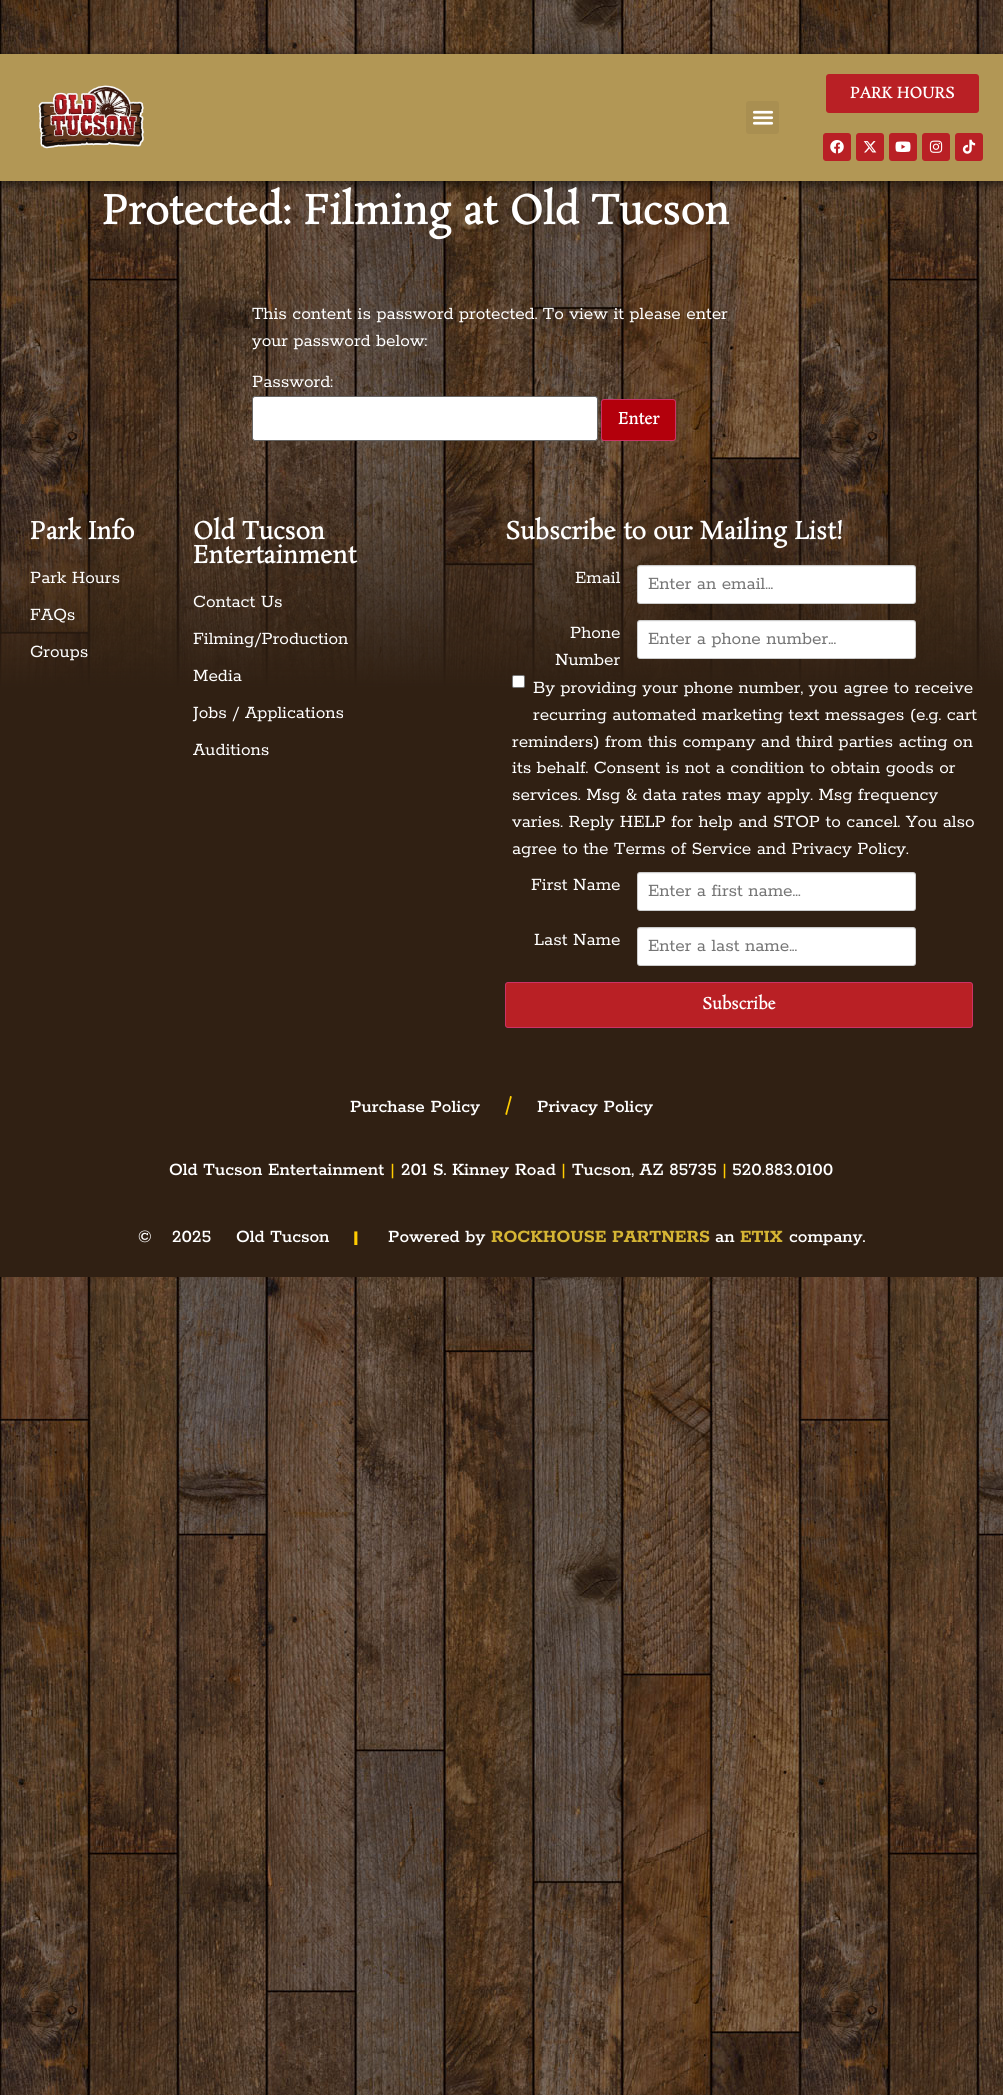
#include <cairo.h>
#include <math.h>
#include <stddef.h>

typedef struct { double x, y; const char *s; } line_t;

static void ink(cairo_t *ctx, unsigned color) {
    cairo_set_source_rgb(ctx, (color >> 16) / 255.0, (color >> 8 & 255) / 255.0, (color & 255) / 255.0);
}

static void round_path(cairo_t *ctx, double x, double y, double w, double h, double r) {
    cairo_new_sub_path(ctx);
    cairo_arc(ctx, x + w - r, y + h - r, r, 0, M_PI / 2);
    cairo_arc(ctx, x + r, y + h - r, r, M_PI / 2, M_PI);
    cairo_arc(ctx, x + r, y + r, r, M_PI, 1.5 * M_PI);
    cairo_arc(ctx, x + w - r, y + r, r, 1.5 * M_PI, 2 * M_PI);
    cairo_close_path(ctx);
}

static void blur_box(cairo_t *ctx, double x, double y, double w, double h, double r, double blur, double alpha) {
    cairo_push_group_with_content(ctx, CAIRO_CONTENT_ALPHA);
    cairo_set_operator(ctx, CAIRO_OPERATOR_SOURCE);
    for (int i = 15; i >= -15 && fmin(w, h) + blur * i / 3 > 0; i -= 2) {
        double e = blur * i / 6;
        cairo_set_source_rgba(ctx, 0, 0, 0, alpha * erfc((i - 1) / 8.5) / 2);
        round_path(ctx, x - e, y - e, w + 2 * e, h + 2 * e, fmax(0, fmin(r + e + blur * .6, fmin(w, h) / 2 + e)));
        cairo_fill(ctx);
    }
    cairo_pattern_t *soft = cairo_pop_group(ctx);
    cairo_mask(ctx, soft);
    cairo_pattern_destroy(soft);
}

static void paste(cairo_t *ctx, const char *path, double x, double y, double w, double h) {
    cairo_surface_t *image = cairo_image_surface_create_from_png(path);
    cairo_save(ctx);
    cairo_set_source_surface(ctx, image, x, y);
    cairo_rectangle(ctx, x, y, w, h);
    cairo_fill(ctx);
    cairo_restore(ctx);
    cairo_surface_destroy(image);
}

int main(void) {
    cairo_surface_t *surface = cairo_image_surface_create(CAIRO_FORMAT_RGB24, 1003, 2095);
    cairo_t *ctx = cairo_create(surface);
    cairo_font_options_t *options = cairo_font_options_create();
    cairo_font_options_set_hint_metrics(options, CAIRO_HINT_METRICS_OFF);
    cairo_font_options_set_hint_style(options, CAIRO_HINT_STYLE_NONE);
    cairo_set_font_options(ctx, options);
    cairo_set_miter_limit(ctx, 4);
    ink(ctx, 0xFFFFFF);
    cairo_paint(ctx);
    paste(ctx, "media/1.png", 0, 0, 1003, 2095);
    ink(ctx, 0x000000);
    blur_box(ctx, 0, 54, 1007, 131, 0, 4, 0.5);
    ink(ctx, 0xB29755);
    cairo_rectangle(ctx, 0, 54, 1003, 127);
    cairo_fill(ctx);
    paste(ctx, "media/2.png", 38, 85, 106, 64);
    ink(ctx, 0xB92025);
    round_path(ctx, 826, 74, 153, 39, 3);
    cairo_fill(ctx);
    cairo_select_font_face(ctx, "Rosarivo", CAIRO_FONT_SLANT_NORMAL, CAIRO_FONT_WEIGHT_BOLD);
    cairo_set_font_size(ctx, 15);
    ink(ctx, 0xFFFFFF);
    cairo_move_to(ctx, 850, 98);
    cairo_show_text(ctx, "PARK HOURS");
    ink(ctx, 0xB92025);
    round_path(ctx, 823, 133, 28, 28, 3);
    cairo_fill(ctx);
    paste(ctx, "media/3.png", 830, 140, 14, 14);
    round_path(ctx, 856, 133, 28, 28, 3);
    cairo_fill(ctx);
    paste(ctx, "media/4.png", 863, 141, 14, 12);
    round_path(ctx, 889, 133, 28, 28, 3);
    cairo_fill(ctx);
    paste(ctx, "media/5.png", 895, 141, 16, 11);
    round_path(ctx, 922, 133, 28, 28, 3);
    cairo_fill(ctx);
    paste(ctx, "media/6.png", 929, 140, 14, 13);
    round_path(ctx, 955, 133, 28, 28, 3);
    cairo_fill(ctx);
    paste(ctx, "media/7.png", 962, 139, 14, 15);
    ink(ctx, 0xA98F51);
    round_path(ctx, 746, 101, 33, 33, 3);
    cairo_fill(ctx);
    paste(ctx, "media/8.png", 752, 110, 22, 15);
    cairo_set_font_size(ctx, 40);
    ink(ctx, 0xFFFFFF);
    cairo_move_to(ctx, 102, 224);
    cairo_show_text(ctx, "Protected: Filming at Old Tucson");
    cairo_select_font_face(ctx, "Rokkitt", CAIRO_FONT_SLANT_NORMAL, CAIRO_FONT_WEIGHT_NORMAL);
    cairo_set_font_size(ctx, 19.2);
    {
        static const line_t items[] = {
            {252, 319, "This content is password protected. To view it please enter"},
            {252, 346, "your password below:"},
            {252, 387, "Password:"},
        };
        for (size_t i = 0; i < sizeof items / sizeof *items; i++) {
            cairo_move_to(ctx, items[i].x, items[i].y);
            cairo_show_text(ctx, items[i].s);
        }
    }
    round_path(ctx, 252.5, 396.5, 345, 44, 2.5);
    cairo_fill_preserve(ctx);
    ink(ctx, 0x666666);
    cairo_set_line_width(ctx, 1);
    cairo_stroke(ctx);
    ink(ctx, 0xB3000C);
    round_path(ctx, 601.5, 399.5, 74, 41, 2.5);
    cairo_fill_preserve(ctx);
    ink(ctx, 0xCC3366);
    cairo_stroke(ctx);
    cairo_select_font_face(ctx, "Rosarivo", CAIRO_FONT_SLANT_NORMAL, CAIRO_FONT_WEIGHT_BOLD);
    cairo_set_font_size(ctx, 16);
    ink(ctx, 0xFFFFFF);
    cairo_move_to(ctx, 618, 424);
    cairo_show_text(ctx, "Enter");
    cairo_set_font_size(ctx, 24);
    cairo_move_to(ctx, 30, 539);
    cairo_show_text(ctx, "Park Info");
    cairo_select_font_face(ctx, "Rokkitt", CAIRO_FONT_SLANT_NORMAL, CAIRO_FONT_WEIGHT_NORMAL);
    cairo_set_font_size(ctx, 19.2);
    {
        static const line_t items[] = {
            {30, 583, "Park Hours"},
            {30, 620, "FAQs"},
            {30, 657, "Groups"},
        };
        for (size_t i = 0; i < sizeof items / sizeof *items; i++) {
            cairo_move_to(ctx, items[i].x, items[i].y);
            cairo_show_text(ctx, items[i].s);
        }
    }
    cairo_select_font_face(ctx, "Rosarivo", CAIRO_FONT_SLANT_NORMAL, CAIRO_FONT_WEIGHT_BOLD);
    cairo_set_font_size(ctx, 24);
    cairo_move_to(ctx, 193, 539);
    cairo_show_text(ctx, "Old Tucson");
    cairo_move_to(ctx, 193, 563);
    cairo_show_text(ctx, "Entertainment");
    cairo_select_font_face(ctx, "Rokkitt", CAIRO_FONT_SLANT_NORMAL, CAIRO_FONT_WEIGHT_NORMAL);
    cairo_set_font_size(ctx, 19.2);
    {
        static const line_t items[] = {
            {193, 607, "Contact Us"},
            {193, 644, "Filming/Production"},
            {193, 681, "Media"},
            {193, 718, "Jobs / Applications"},
            {193, 755, "Auditions"},
        };
        for (size_t i = 0; i < sizeof items / sizeof *items; i++) {
            cairo_move_to(ctx, items[i].x, items[i].y);
            cairo_show_text(ctx, items[i].s);
        }
    }
    cairo_select_font_face(ctx, "Rosarivo", CAIRO_FONT_SLANT_NORMAL, CAIRO_FONT_WEIGHT_BOLD);
    cairo_set_font_size(ctx, 24);
    cairo_move_to(ctx, 505, 539);
    cairo_show_text(ctx, "Subscribe to our Mailing List!");
    cairo_select_font_face(ctx, "Rokkitt", CAIRO_FONT_SLANT_NORMAL, CAIRO_FONT_WEIGHT_NORMAL);
    cairo_set_font_size(ctx, 19.2);
    cairo_move_to(ctx, 575, 583);
    cairo_show_text(ctx, "Email");
    round_path(ctx, 637, 565, 279, 39, 3);
    cairo_fill(ctx);
    ink(ctx, 0xF5F5F5);
    cairo_new_path(ctx);
    cairo_move_to(ctx, 640, 567);
    cairo_line_to(ctx, 913, 567);
    cairo_curve_to(ctx, 914, 567, 915, 568, 915, 569);
    cairo_line_to(ctx, 915, 567);
    cairo_line_to(ctx, 913, 566);
    cairo_line_to(ctx, 640, 566);
    cairo_curve_to(ctx, 638, 566, 638, 568, 638, 569);
    cairo_curve_to(ctx, 638, 568, 639, 567, 640, 567);
    cairo_close_path(ctx);
    cairo_fill(ctx);
    round_path(ctx, 637.5, 565.5, 278, 38, 2.5);
    cairo_set_source_rgba(ctx, 0, 0, 0, 0.2);
    cairo_stroke(ctx);
    ink(ctx, 0x757575);
    cairo_move_to(ctx, 648, 589);
    cairo_show_text(ctx, "Enter an email...");
    ink(ctx, 0xFFFFFF);
    cairo_move_to(ctx, 570, 638);
    cairo_show_text(ctx, "Phone");
    cairo_move_to(ctx, 555, 665);
    cairo_show_text(ctx, "Number");
    round_path(ctx, 637, 620, 279, 39, 3);
    cairo_fill(ctx);
    ink(ctx, 0xF5F5F5);
    cairo_new_path(ctx);
    cairo_move_to(ctx, 640, 622);
    cairo_line_to(ctx, 913, 622);
    cairo_curve_to(ctx, 914, 622, 915, 623, 915, 624);
    cairo_line_to(ctx, 915, 622);
    cairo_line_to(ctx, 913, 621);
    cairo_line_to(ctx, 640, 621);
    cairo_curve_to(ctx, 638, 621, 638, 623, 638, 624);
    cairo_curve_to(ctx, 638, 623, 639, 622, 640, 622);
    cairo_close_path(ctx);
    cairo_fill(ctx);
    round_path(ctx, 637.5, 620.5, 278, 38, 2.5);
    cairo_set_source_rgba(ctx, 0, 0, 0, 0.2);
    cairo_stroke(ctx);
    ink(ctx, 0x757575);
    cairo_move_to(ctx, 648, 644);
    cairo_show_text(ctx, "Enter a phone number...");
    ink(ctx, 0xFFFFFF);
    round_path(ctx, 512.5, 675.5, 12, 12, 1.5);
    cairo_fill_preserve(ctx);
    ink(ctx, 0x767676);
    cairo_stroke(ctx);
    ink(ctx, 0xFFFFFF);
    {
        static const line_t items[] = {
            {533, 693, "By providing your phone number, you agree to receive"},
            {533, 720, "recurring automated marketing text messages (e.g. cart"},
            {512, 747, "reminders) from this company and third parties acting on"},
            {512, 773, "its behalf. Consent is not a condition to obtain goods or"},
            {512, 800, "services. Msg & data rates may apply. Msg frequency"},
            {512, 827, "varies. Reply HELP for help and STOP to cancel. You also"},
            {512, 854, "agree to the Terms of Service and Privacy Policy."},
            {531, 890, "First Name"},
        };
        for (size_t i = 0; i < sizeof items / sizeof *items; i++) {
            cairo_move_to(ctx, items[i].x, items[i].y);
            cairo_show_text(ctx, items[i].s);
        }
    }
    round_path(ctx, 637, 872, 279, 39, 3);
    cairo_fill(ctx);
    ink(ctx, 0xF5F5F5);
    cairo_new_path(ctx);
    cairo_move_to(ctx, 640, 874);
    cairo_line_to(ctx, 913, 874);
    cairo_curve_to(ctx, 914, 874, 915, 875, 915, 876);
    cairo_line_to(ctx, 915, 874);
    cairo_line_to(ctx, 913, 873);
    cairo_line_to(ctx, 640, 873);
    cairo_curve_to(ctx, 638, 873, 638, 875, 638, 876);
    cairo_curve_to(ctx, 638, 875, 639, 874, 640, 874);
    cairo_close_path(ctx);
    cairo_fill(ctx);
    round_path(ctx, 637.5, 872.5, 278, 38, 2.5);
    cairo_set_source_rgba(ctx, 0, 0, 0, 0.2);
    cairo_stroke(ctx);
    ink(ctx, 0x757575);
    cairo_move_to(ctx, 648, 896);
    cairo_show_text(ctx, "Enter a first name...");
    ink(ctx, 0xFFFFFF);
    cairo_move_to(ctx, 534, 945);
    cairo_show_text(ctx, "Last Name");
    round_path(ctx, 637, 927, 279, 39, 3);
    cairo_fill(ctx);
    ink(ctx, 0xF5F5F5);
    cairo_new_path(ctx);
    cairo_move_to(ctx, 640, 929);
    cairo_line_to(ctx, 913, 929);
    cairo_curve_to(ctx, 914, 929, 915, 930, 915, 931);
    cairo_line_to(ctx, 915, 929);
    cairo_line_to(ctx, 913, 928);
    cairo_line_to(ctx, 640, 928);
    cairo_curve_to(ctx, 638, 928, 638, 930, 638, 931);
    cairo_curve_to(ctx, 638, 930, 639, 929, 640, 929);
    cairo_close_path(ctx);
    cairo_fill(ctx);
    round_path(ctx, 637.5, 927.5, 278, 38, 2.5);
    cairo_set_source_rgba(ctx, 0, 0, 0, 0.2);
    cairo_stroke(ctx);
    ink(ctx, 0x757575);
    cairo_move_to(ctx, 648, 951);
    cairo_show_text(ctx, "Enter a last name...");
    ink(ctx, 0xB92025);
    round_path(ctx, 505.5, 982.5, 467, 45, 2.5);
    cairo_fill_preserve(ctx);
    ink(ctx, 0xCC3366);
    cairo_stroke(ctx);
    cairo_select_font_face(ctx, "Rosarivo", CAIRO_FONT_SLANT_NORMAL, CAIRO_FONT_WEIGHT_BOLD);
    cairo_set_font_size(ctx, 16);
    ink(ctx, 0xFFFFFF);
    cairo_move_to(ctx, 702, 1009);
    cairo_show_text(ctx, "Subscribe");
    cairo_select_font_face(ctx, "Rokkitt Medium", CAIRO_FONT_SLANT_NORMAL, CAIRO_FONT_WEIGHT_NORMAL);
    cairo_set_font_size(ctx, 19.2);
    cairo_move_to(ctx, 350, 1112);
    cairo_show_text(ctx, "Purchase Policy");
    cairo_select_font_face(ctx, "Rosarivo", CAIRO_FONT_SLANT_NORMAL, CAIRO_FONT_WEIGHT_BOLD);
    ink(ctx, 0xFFCC00);
    cairo_move_to(ctx, 505, 1113);
    cairo_show_text(ctx, "/");
    cairo_select_font_face(ctx, "Rokkitt Medium", CAIRO_FONT_SLANT_NORMAL, CAIRO_FONT_WEIGHT_NORMAL);
    ink(ctx, 0xFFFFFF);
    cairo_move_to(ctx, 537, 1112);
    cairo_show_text(ctx, "Privacy Policy");
    cairo_move_to(ctx, 169, 1175);
    cairo_show_text(ctx, "Old Tucson Entertainment");
    ink(ctx, 0xFFCC00);
    cairo_move_to(ctx, 390, 1175);
    cairo_show_text(ctx, "|");
    ink(ctx, 0xFFFFFF);
    cairo_move_to(ctx, 401, 1175);
    cairo_show_text(ctx, "201 S. Kinney Road");
    ink(ctx, 0xFFCC00);
    cairo_move_to(ctx, 561, 1175);
    cairo_show_text(ctx, "|");
    ink(ctx, 0xFFFFFF);
    cairo_move_to(ctx, 572, 1175);
    cairo_show_text(ctx, "Tucson, AZ 85735");
    ink(ctx, 0xFFCC00);
    cairo_move_to(ctx, 722, 1175);
    cairo_show_text(ctx, "|");
    ink(ctx, 0xFFFFFF);
    {
        static const line_t items[] = {
            {732, 1175, "520.883.0100"},
            {138, 1242, "©"},
            {172, 1242, "2025"},
            {236, 1242, "Old Tucson"},
        };
        for (size_t i = 0; i < sizeof items / sizeof *items; i++) {
            cairo_move_to(ctx, items[i].x, items[i].y);
            cairo_show_text(ctx, items[i].s);
        }
    }
    cairo_select_font_face(ctx, "Poppins Black", CAIRO_FONT_SLANT_NORMAL, CAIRO_FONT_WEIGHT_NORMAL);
    cairo_set_font_size(ctx, 14);
    ink(ctx, 0xFFCC00);
    cairo_move_to(ctx, 354, 1243);
    cairo_show_text(ctx, "|");
    cairo_select_font_face(ctx, "Rokkitt Medium", CAIRO_FONT_SLANT_NORMAL, CAIRO_FONT_WEIGHT_NORMAL);
    cairo_set_font_size(ctx, 19.2);
    ink(ctx, 0xFFFFFF);
    cairo_move_to(ctx, 388, 1242);
    cairo_show_text(ctx, "Powered by");
    cairo_select_font_face(ctx, "Rokkitt", CAIRO_FONT_SLANT_NORMAL, CAIRO_FONT_WEIGHT_BOLD);
    ink(ctx, 0xD5B534);
    cairo_move_to(ctx, 491, 1242);
    cairo_show_text(ctx, "ROCKHOUSE PARTNERS");
    cairo_select_font_face(ctx, "Rokkitt Medium", CAIRO_FONT_SLANT_NORMAL, CAIRO_FONT_WEIGHT_NORMAL);
    ink(ctx, 0xFFFFFF);
    cairo_move_to(ctx, 715, 1242);
    cairo_show_text(ctx, "an");
    cairo_select_font_face(ctx, "Rokkitt", CAIRO_FONT_SLANT_NORMAL, CAIRO_FONT_WEIGHT_BOLD);
    ink(ctx, 0xD5B534);
    cairo_move_to(ctx, 740, 1242);
    cairo_show_text(ctx, "ETIX");
    cairo_select_font_face(ctx, "Rokkitt Medium", CAIRO_FONT_SLANT_NORMAL, CAIRO_FONT_WEIGHT_NORMAL);
    ink(ctx, 0xFFFFFF);
    cairo_move_to(ctx, 789, 1242);
    cairo_show_text(ctx, "company.");
    cairo_surface_write_to_png(surface, "image.png");
    cairo_font_options_destroy(options);
    cairo_destroy(ctx);
    cairo_surface_destroy(surface);
    return 0;
}
